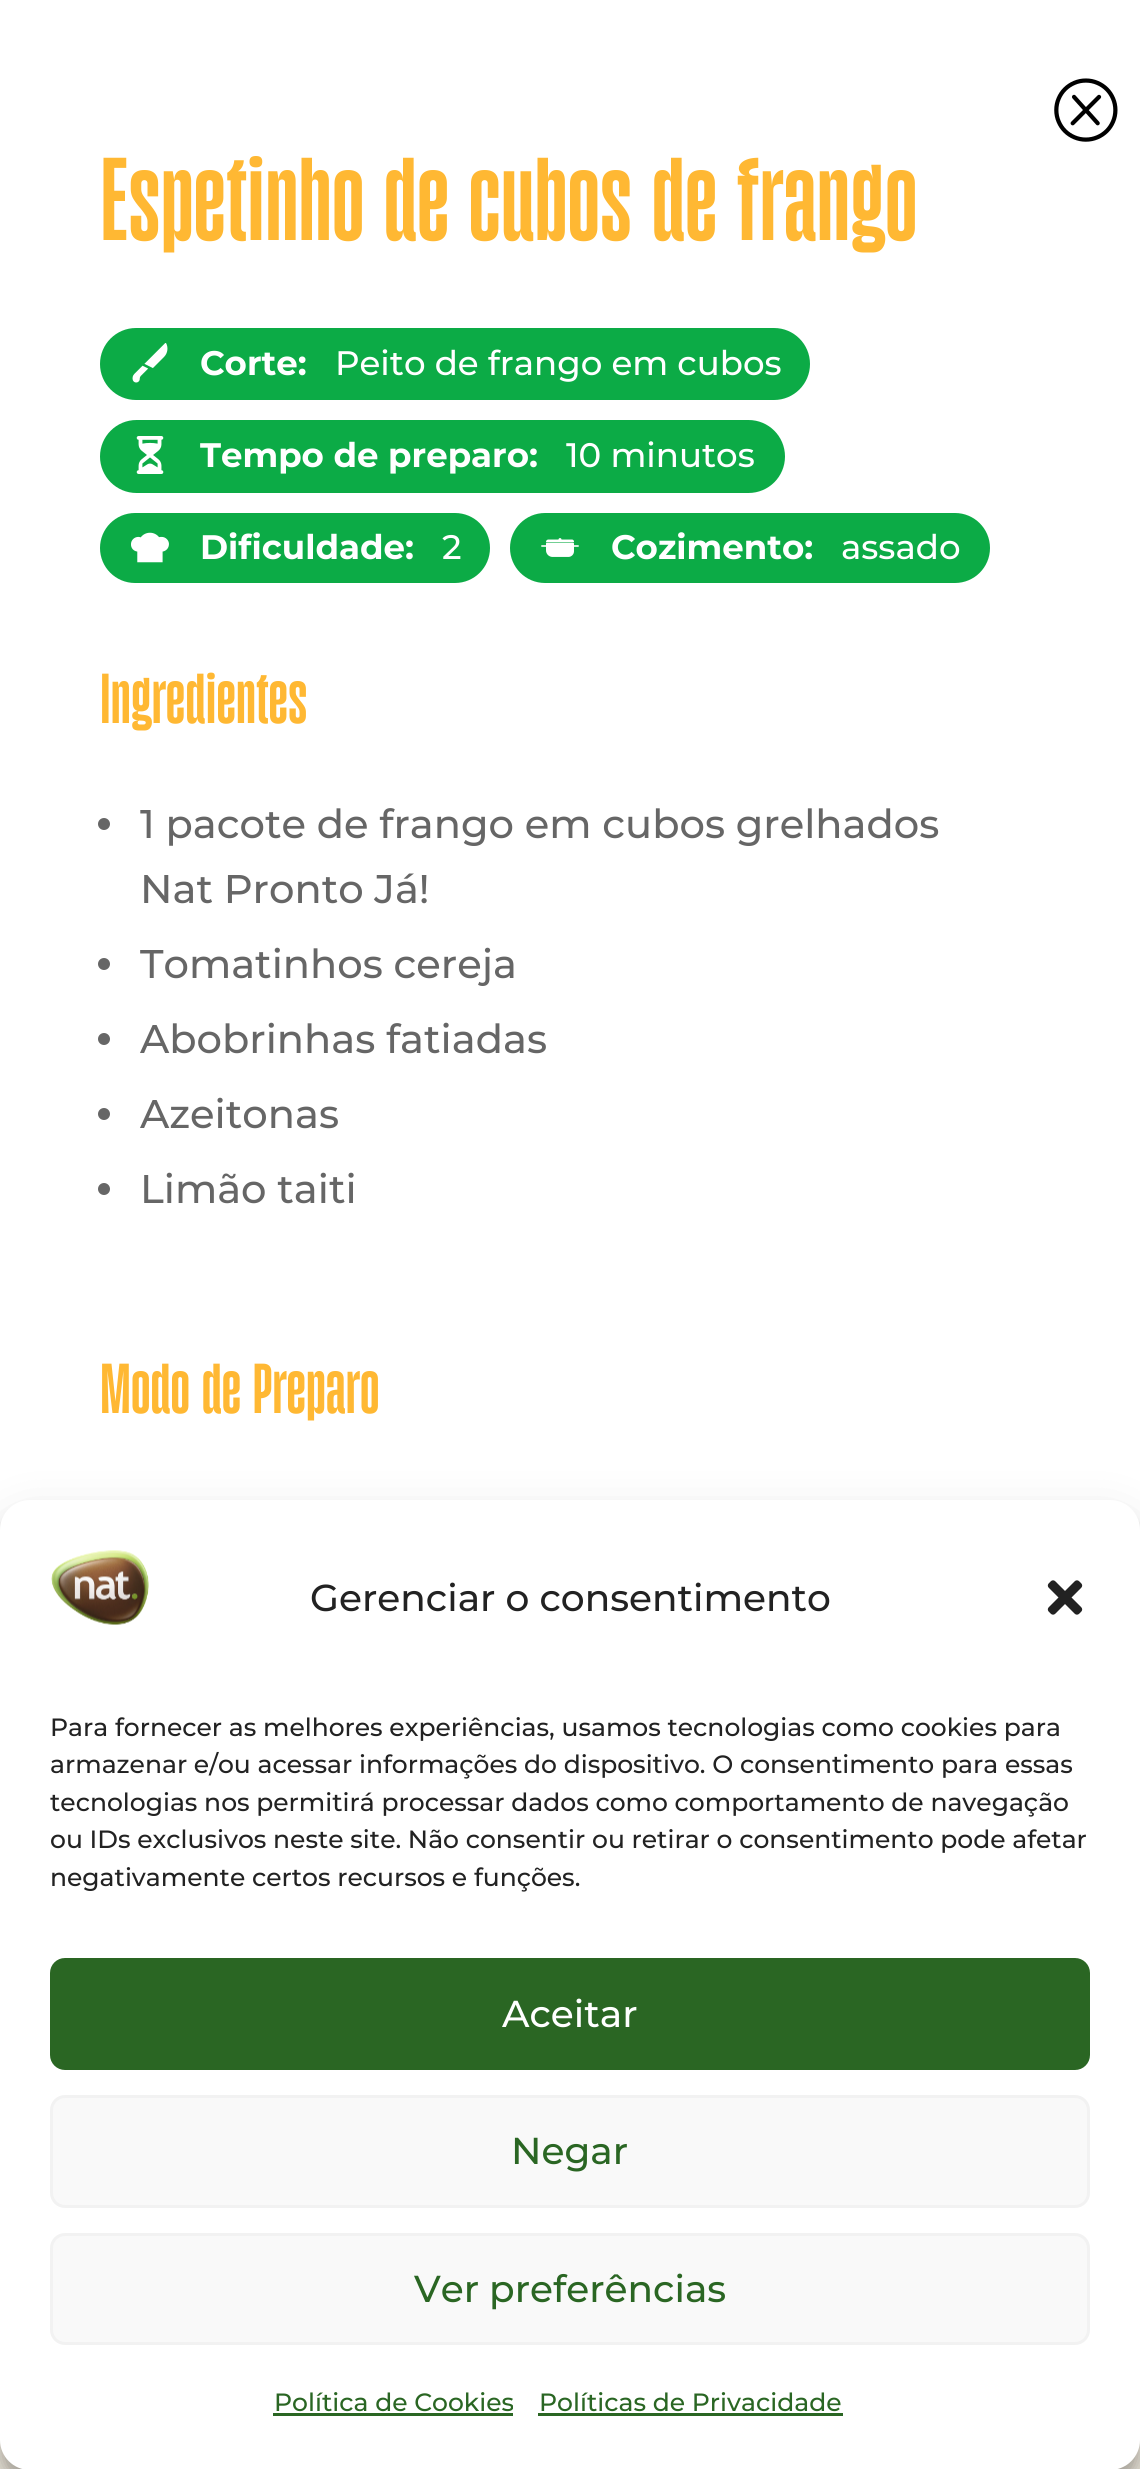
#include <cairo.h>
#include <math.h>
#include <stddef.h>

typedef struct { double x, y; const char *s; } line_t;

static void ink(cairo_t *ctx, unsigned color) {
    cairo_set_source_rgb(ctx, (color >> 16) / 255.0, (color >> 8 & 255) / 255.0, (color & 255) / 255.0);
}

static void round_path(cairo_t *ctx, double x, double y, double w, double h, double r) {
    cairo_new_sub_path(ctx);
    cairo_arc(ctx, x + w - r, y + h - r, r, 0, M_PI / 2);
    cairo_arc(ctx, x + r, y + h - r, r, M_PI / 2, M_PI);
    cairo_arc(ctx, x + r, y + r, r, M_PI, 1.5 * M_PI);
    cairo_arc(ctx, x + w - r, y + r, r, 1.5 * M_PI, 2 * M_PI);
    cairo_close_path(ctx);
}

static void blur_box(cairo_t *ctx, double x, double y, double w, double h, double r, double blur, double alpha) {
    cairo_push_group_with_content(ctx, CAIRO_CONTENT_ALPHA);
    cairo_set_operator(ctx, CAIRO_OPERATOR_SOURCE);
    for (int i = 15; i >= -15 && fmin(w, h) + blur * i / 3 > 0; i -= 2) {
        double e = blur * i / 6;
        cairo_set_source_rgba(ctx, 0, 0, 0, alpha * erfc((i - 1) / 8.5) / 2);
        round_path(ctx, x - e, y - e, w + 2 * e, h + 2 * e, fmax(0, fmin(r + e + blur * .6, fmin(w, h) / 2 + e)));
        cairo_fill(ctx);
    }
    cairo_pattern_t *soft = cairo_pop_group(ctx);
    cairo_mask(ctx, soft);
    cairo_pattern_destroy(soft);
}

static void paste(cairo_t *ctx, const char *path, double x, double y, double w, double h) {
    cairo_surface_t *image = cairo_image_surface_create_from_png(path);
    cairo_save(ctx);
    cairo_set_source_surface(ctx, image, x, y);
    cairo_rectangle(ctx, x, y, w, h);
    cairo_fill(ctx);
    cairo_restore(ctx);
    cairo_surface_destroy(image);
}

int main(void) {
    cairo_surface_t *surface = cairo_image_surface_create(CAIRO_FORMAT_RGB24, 1140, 2469);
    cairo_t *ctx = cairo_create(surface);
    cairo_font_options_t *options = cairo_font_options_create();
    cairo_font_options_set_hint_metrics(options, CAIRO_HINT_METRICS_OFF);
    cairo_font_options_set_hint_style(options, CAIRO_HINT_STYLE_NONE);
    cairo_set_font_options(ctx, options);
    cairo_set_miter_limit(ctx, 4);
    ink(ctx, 0xFBF5E8);
    cairo_paint(ctx);
    ink(ctx, 0xFFFFFF);
    cairo_rectangle(ctx, 0, 0, 1140, 1530);
    cairo_fill(ctx);
    paste(ctx, "media/1.png", 1054, 78, 64, 64);
    cairo_select_font_face(ctx, "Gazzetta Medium", CAIRO_FONT_SLANT_NORMAL, CAIRO_FONT_WEIGHT_NORMAL);
    cairo_set_font_size(ctx, 125);
    ink(ctx, 0xFFB833);
    cairo_move_to(ctx, 100, 240);
    cairo_show_text(ctx, "Espetinho de cubos de frango");
    ink(ctx, 0x0CAB46);
    round_path(ctx, 100, 328, 710, 72, 36);
    cairo_fill(ctx);
    paste(ctx, "media/2.png", 132, 343, 36, 40);
    cairo_select_font_face(ctx, "Montserrat", CAIRO_FONT_SLANT_NORMAL, CAIRO_FONT_WEIGHT_BOLD);
    cairo_set_font_size(ctx, 34);
    ink(ctx, 0xFFFFFF);
    cairo_move_to(ctx, 200, 375);
    cairo_show_text(ctx, "Corte:");
    cairo_select_font_face(ctx, "Montserrat Medium", CAIRO_FONT_SLANT_NORMAL, CAIRO_FONT_WEIGHT_NORMAL);
    cairo_move_to(ctx, 335, 375);
    cairo_show_text(ctx, "Peito de frango em cubos");
    ink(ctx, 0x0CAB46);
    round_path(ctx, 100, 420, 685, 73, 36.5);
    cairo_fill(ctx);
    paste(ctx, "media/3.png", 136, 436, 28, 38);
    cairo_select_font_face(ctx, "Montserrat", CAIRO_FONT_SLANT_NORMAL, CAIRO_FONT_WEIGHT_BOLD);
    ink(ctx, 0xFFFFFF);
    cairo_move_to(ctx, 200, 467);
    cairo_show_text(ctx, "Tempo de preparo:");
    cairo_select_font_face(ctx, "Montserrat Medium", CAIRO_FONT_SLANT_NORMAL, CAIRO_FONT_WEIGHT_NORMAL);
    cairo_move_to(ctx, 566, 467);
    cairo_show_text(ctx, "10 minutos");
    ink(ctx, 0x0CAB46);
    round_path(ctx, 100, 513, 390, 70, 35);
    cairo_fill(ctx);
    paste(ctx, "media/4.png", 131, 532, 38, 31);
    cairo_select_font_face(ctx, "Montserrat", CAIRO_FONT_SLANT_NORMAL, CAIRO_FONT_WEIGHT_BOLD);
    ink(ctx, 0xFFFFFF);
    cairo_move_to(ctx, 200, 559);
    cairo_show_text(ctx, "Dificuldade:");
    cairo_select_font_face(ctx, "Montserrat Medium", CAIRO_FONT_SLANT_NORMAL, CAIRO_FONT_WEIGHT_NORMAL);
    cairo_move_to(ctx, 442, 559);
    cairo_show_text(ctx, "2");
    ink(ctx, 0x0CAB46);
    round_path(ctx, 510, 513, 480, 70, 35);
    cairo_fill(ctx);
    paste(ctx, "media/5.png", 541, 538, 38, 19);
    cairo_select_font_face(ctx, "Montserrat", CAIRO_FONT_SLANT_NORMAL, CAIRO_FONT_WEIGHT_BOLD);
    ink(ctx, 0xFFFFFF);
    cairo_move_to(ctx, 611, 559);
    cairo_show_text(ctx, "Cozimento:");
    cairo_select_font_face(ctx, "Montserrat Medium", CAIRO_FONT_SLANT_NORMAL, CAIRO_FONT_WEIGHT_NORMAL);
    cairo_move_to(ctx, 841, 559);
    cairo_show_text(ctx, "assado");
    cairo_select_font_face(ctx, "Gazzetta Medium", CAIRO_FONT_SLANT_NORMAL, CAIRO_FONT_WEIGHT_NORMAL);
    cairo_set_font_size(ctx, 75);
    ink(ctx, 0xFFB833);
    cairo_move_to(ctx, 100, 723);
    cairo_show_text(ctx, "Ingredientes");
    ink(ctx, 0x666666);
    cairo_new_path(ctx);
    cairo_arc(ctx, 104, 824, 6, 0, 2 * M_PI);
    cairo_fill(ctx);
    cairo_select_font_face(ctx, "Montserrat Medium", CAIRO_FONT_SLANT_NORMAL, CAIRO_FONT_WEIGHT_NORMAL);
    cairo_set_font_size(ctx, 40);
    cairo_move_to(ctx, 140, 838);
    cairo_show_text(ctx, "1 pacote de frango em cubos grelhados");
    cairo_move_to(ctx, 140, 903);
    cairo_show_text(ctx, "Nat Pronto Já!");
    cairo_new_path(ctx);
    cairo_arc(ctx, 104, 964, 6, 0, 2 * M_PI);
    cairo_fill(ctx);
    cairo_move_to(ctx, 140, 978);
    cairo_show_text(ctx, "Tomatinhos cereja");
    cairo_new_path(ctx);
    cairo_arc(ctx, 104, 1039, 6, 0, 2 * M_PI);
    cairo_fill(ctx);
    cairo_move_to(ctx, 140, 1053);
    cairo_show_text(ctx, "Abobrinhas fatiadas");
    cairo_new_path(ctx);
    cairo_arc(ctx, 104, 1114, 6, 0, 2 * M_PI);
    cairo_fill(ctx);
    cairo_move_to(ctx, 140, 1128);
    cairo_show_text(ctx, "Azeitonas");
    cairo_new_path(ctx);
    cairo_arc(ctx, 104, 1189, 6, 0, 2 * M_PI);
    cairo_fill(ctx);
    cairo_move_to(ctx, 140, 1203);
    cairo_show_text(ctx, "Limão taiti");
    cairo_select_font_face(ctx, "Gazzetta Medium", CAIRO_FONT_SLANT_NORMAL, CAIRO_FONT_WEIGHT_NORMAL);
    cairo_set_font_size(ctx, 75);
    ink(ctx, 0xFFB833);
    cairo_move_to(ctx, 100, 1413);
    cairo_show_text(ctx, "Modo de Preparo");
    ink(ctx, 0x000000);
    blur_box(ctx, 0, 1515, 1140, 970, 30, 7.5, 0.23);
    blur_box(ctx, 0, 1525, 1140, 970, 30, 25, 0.19);
    ink(ctx, 0xFFFFFF);
    round_path(ctx, 0, 1500, 1140, 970, 30);
    cairo_fill(ctx);
    paste(ctx, "media/6.png", 51, 1550, 98, 75);
    cairo_select_font_face(ctx, "Montserrat Medium", CAIRO_FONT_SLANT_NORMAL, CAIRO_FONT_WEIGHT_NORMAL);
    cairo_set_font_size(ctx, 37.5);
    ink(ctx, 0x222222);
    cairo_move_to(ctx, 310, 1611);
    cairo_show_text(ctx, "Gerenciar o consentimento");
    paste(ctx, "media/7.png", 1047, 1580, 36, 35);
    cairo_set_font_size(ctx, 25);
    {
        static const line_t items[] = {
            {50, 1736, "Para fornecer as melhores experiências, usamos tecnologias como cookies para"},
            {50, 1773, "armazenar e/ou acessar informações do dispositivo. O consentimento para essas"},
            {50, 1811, "tecnologias nos permitirá processar dados como comportamento de navegação"},
            {50, 1848, "ou IDs exclusivos neste site. Não consentir ou retirar o consentimento pode afetar"},
            {50, 1886, "negativamente certos recursos e funções."},
        };
        for (size_t i = 0; i < sizeof items / sizeof *items; i++) {
            cairo_move_to(ctx, items[i].x, items[i].y);
            cairo_show_text(ctx, items[i].s);
        }
    }
    ink(ctx, 0x2A6623);
    round_path(ctx, 51.5, 1959.5, 1037, 109, 13.5);
    cairo_fill_preserve(ctx);
    cairo_set_line_width(ctx, 3);
    cairo_stroke(ctx);
    cairo_set_font_size(ctx, 37.5);
    ink(ctx, 0xFFFFFF);
    cairo_move_to(ctx, 502, 2027);
    cairo_show_text(ctx, "Aceitar");
    ink(ctx, 0xF9F9F9);
    round_path(ctx, 51.5, 2096.5, 1037, 110, 13.5);
    cairo_fill_preserve(ctx);
    ink(ctx, 0xF2F2F2);
    cairo_stroke(ctx);
    ink(ctx, 0x2A6623);
    cairo_move_to(ctx, 511, 2164);
    cairo_show_text(ctx, "Negar");
    ink(ctx, 0xF9F9F9);
    round_path(ctx, 51.5, 2234.5, 1037, 109, 13.5);
    cairo_fill_preserve(ctx);
    ink(ctx, 0xF2F2F2);
    cairo_stroke(ctx);
    ink(ctx, 0x2A6623);
    cairo_move_to(ctx, 414, 2302);
    cairo_show_text(ctx, "Ver preferências");
    cairo_set_font_size(ctx, 25);
    cairo_move_to(ctx, 274, 2411);
    cairo_show_text(ctx, "Política de Cookies");
    cairo_rectangle(ctx, 273, 2413, 240, 3);
    cairo_fill(ctx);
    cairo_move_to(ctx, 539, 2411);
    cairo_show_text(ctx, "Políticas de Privacidade");
    cairo_rectangle(ctx, 538, 2413, 305, 3);
    cairo_fill(ctx);
    cairo_surface_write_to_png(surface, "image.png");
    cairo_font_options_destroy(options);
    cairo_destroy(ctx);
    cairo_surface_destroy(surface);
    return 0;
}
